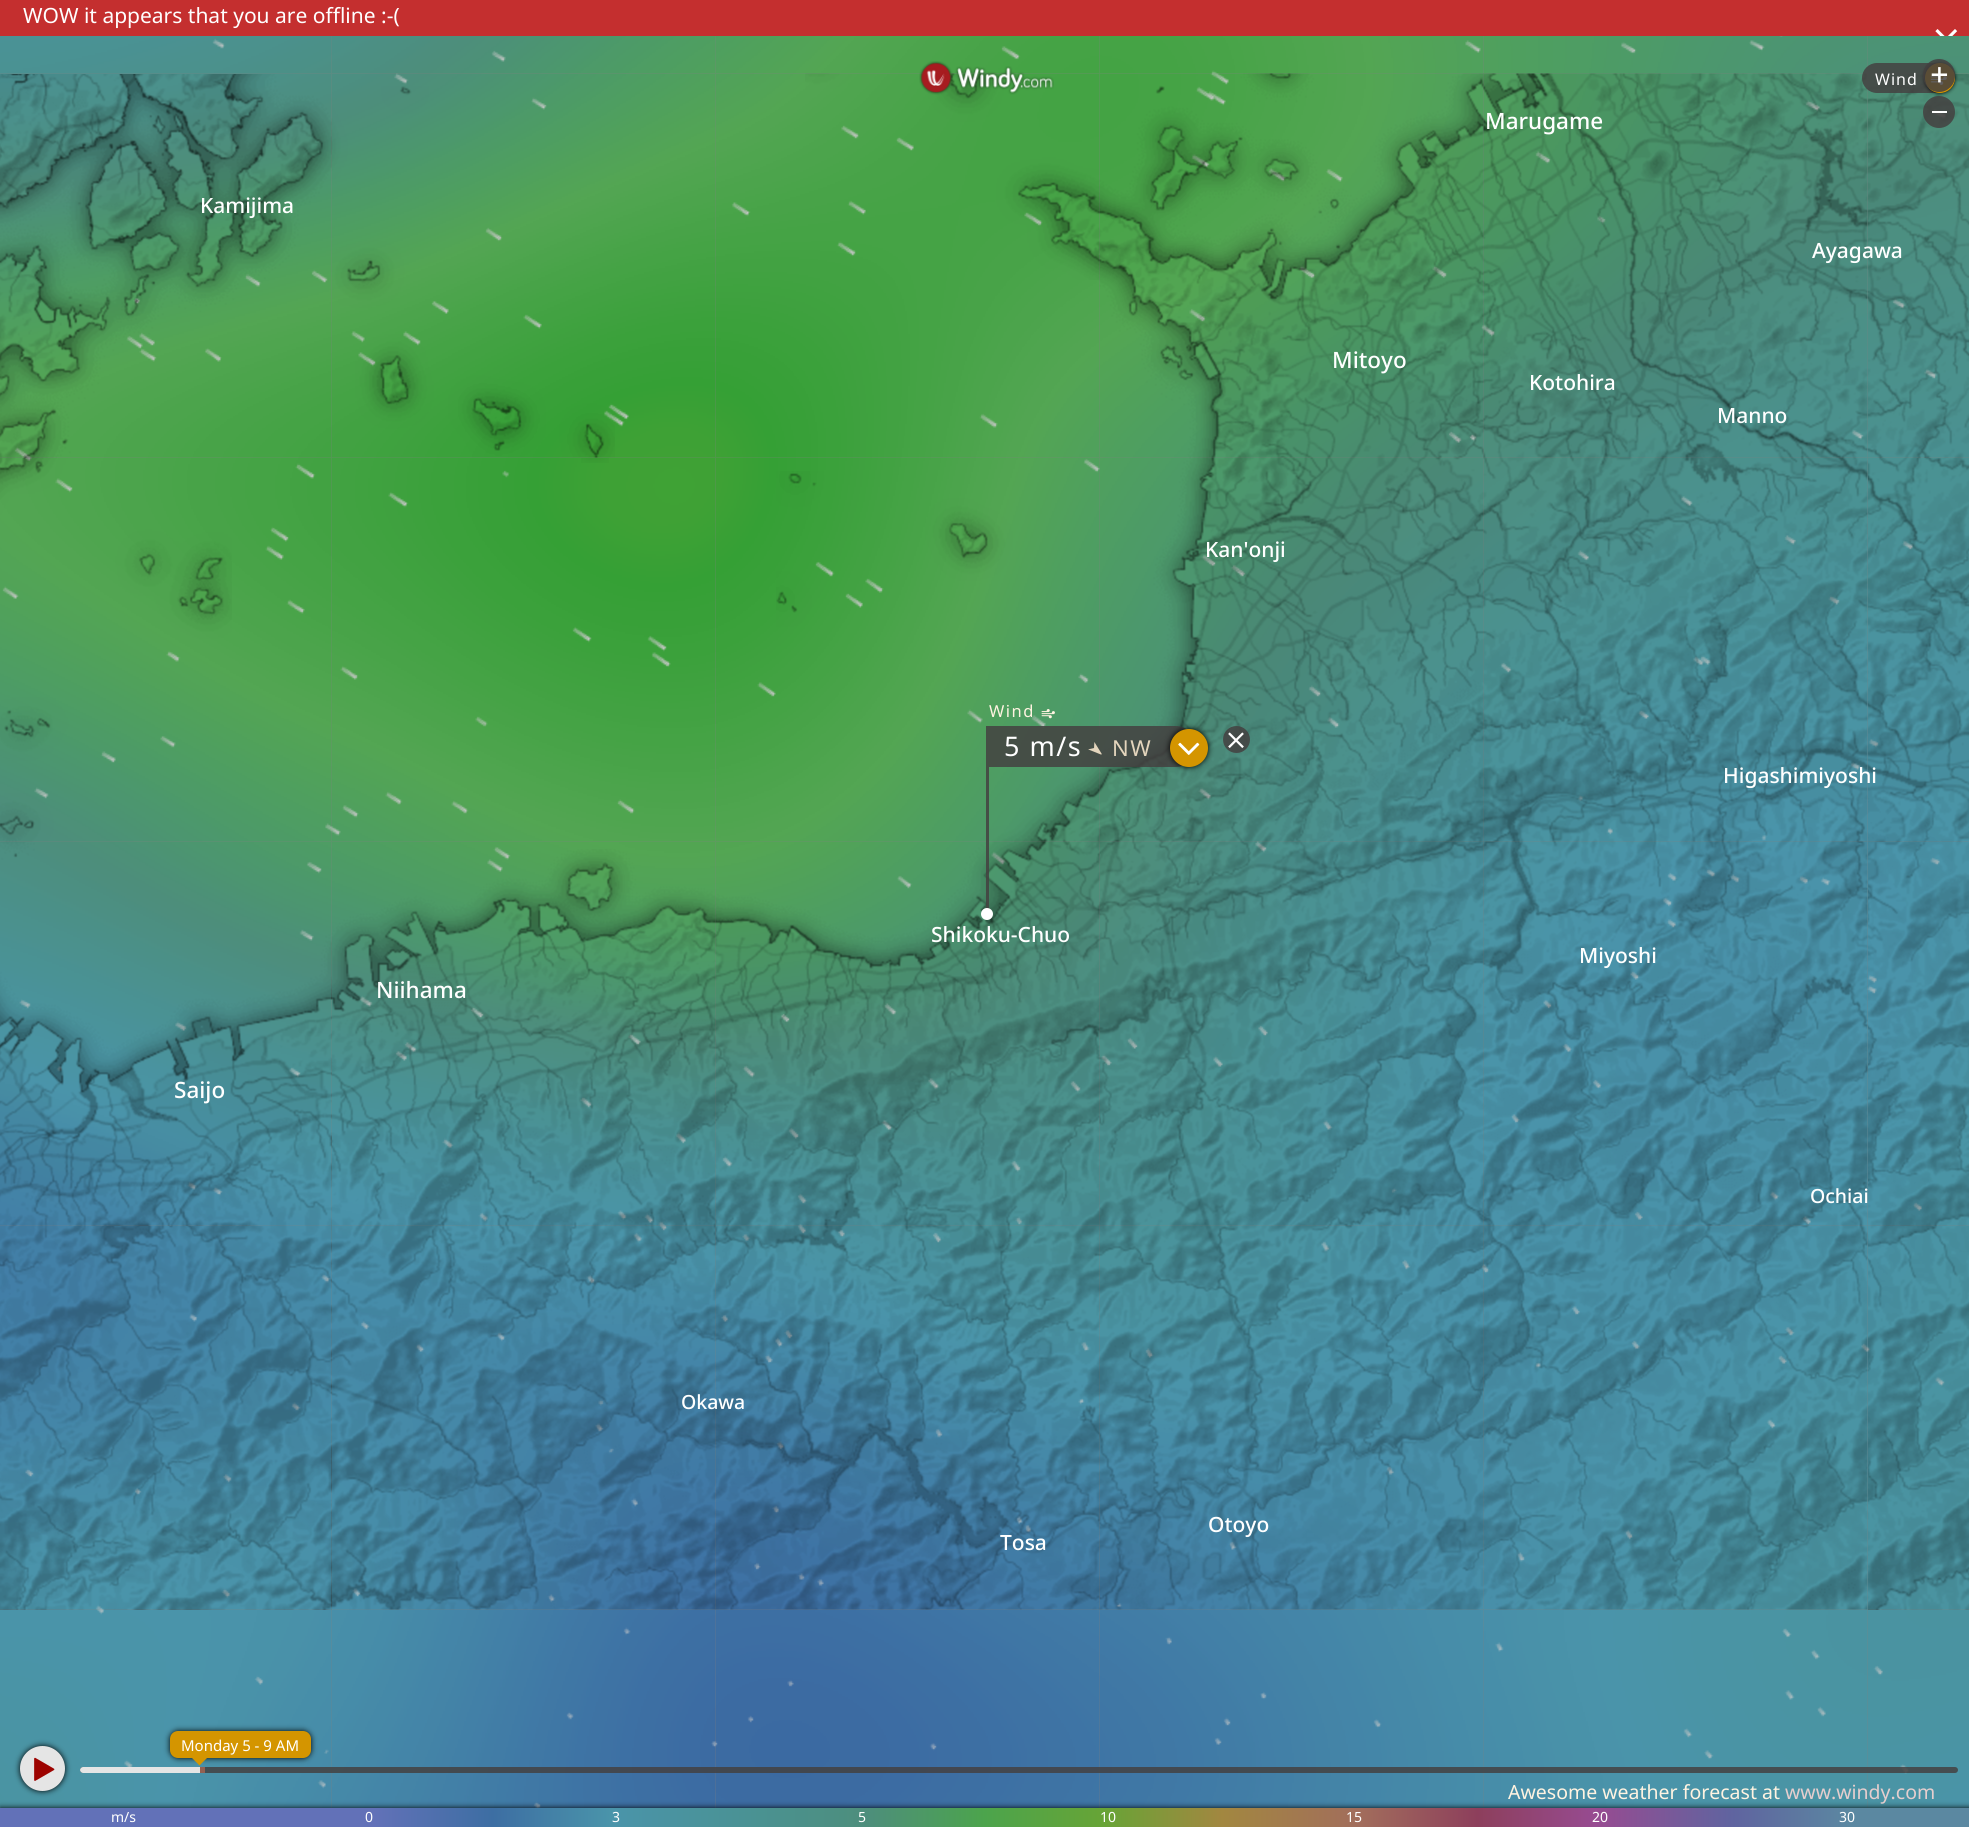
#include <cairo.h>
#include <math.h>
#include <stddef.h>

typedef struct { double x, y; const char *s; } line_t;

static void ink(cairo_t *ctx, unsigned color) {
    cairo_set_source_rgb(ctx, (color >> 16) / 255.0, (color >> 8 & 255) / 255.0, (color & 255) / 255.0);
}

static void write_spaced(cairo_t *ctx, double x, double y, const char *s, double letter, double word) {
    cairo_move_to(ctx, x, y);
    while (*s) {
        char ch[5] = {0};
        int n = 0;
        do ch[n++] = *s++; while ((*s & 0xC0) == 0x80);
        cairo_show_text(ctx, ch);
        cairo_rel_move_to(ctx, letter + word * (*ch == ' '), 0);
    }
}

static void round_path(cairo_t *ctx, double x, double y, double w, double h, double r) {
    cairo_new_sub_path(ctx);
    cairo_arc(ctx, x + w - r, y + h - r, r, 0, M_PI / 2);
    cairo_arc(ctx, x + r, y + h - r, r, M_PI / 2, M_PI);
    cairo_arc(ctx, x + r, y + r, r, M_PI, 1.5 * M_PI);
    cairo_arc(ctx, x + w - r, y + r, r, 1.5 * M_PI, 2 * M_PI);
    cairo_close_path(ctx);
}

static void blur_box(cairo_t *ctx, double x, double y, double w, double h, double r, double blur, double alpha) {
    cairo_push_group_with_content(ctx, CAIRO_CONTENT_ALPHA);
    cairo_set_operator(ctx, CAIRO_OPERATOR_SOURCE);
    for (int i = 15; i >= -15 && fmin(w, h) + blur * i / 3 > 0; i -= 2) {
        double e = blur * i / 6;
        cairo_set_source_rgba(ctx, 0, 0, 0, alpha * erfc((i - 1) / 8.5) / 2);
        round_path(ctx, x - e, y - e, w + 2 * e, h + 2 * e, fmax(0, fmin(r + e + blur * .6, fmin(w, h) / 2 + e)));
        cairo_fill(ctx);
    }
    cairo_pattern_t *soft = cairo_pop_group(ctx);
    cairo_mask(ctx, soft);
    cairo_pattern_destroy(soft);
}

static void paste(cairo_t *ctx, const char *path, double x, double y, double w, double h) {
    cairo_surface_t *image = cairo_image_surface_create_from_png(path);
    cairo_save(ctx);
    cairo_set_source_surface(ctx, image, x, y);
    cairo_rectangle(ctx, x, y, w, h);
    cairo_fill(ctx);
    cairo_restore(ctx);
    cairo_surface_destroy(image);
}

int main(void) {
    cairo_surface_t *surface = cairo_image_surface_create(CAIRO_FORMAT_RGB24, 1969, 1827);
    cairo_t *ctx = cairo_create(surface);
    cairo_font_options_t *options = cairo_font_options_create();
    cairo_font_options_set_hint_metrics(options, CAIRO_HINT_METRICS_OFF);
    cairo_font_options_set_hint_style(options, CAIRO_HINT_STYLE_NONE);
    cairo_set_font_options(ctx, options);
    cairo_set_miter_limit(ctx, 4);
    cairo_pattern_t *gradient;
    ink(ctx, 0x808080);
    cairo_paint(ctx);
    ink(ctx, 0xC42F2F);
    cairo_rectangle(ctx, 0, 0, 1969, 36);
    cairo_fill(ctx);
    cairo_select_font_face(ctx, "Noto Sans", CAIRO_FONT_SLANT_NORMAL, CAIRO_FONT_WEIGHT_NORMAL);
    cairo_set_font_size(ctx, 21);
    ink(ctx, 0xFFFFFF);
    cairo_move_to(ctx, 23, 23);
    cairo_show_text(ctx, "WOW it appears that you are offline :-(");
    paste(ctx, "media/1.png", 1935, 29, 23, 7);
    paste(ctx, "media/20.png", 715, 457, 385, 385);
    paste(ctx, "media/21.png", 1099, 457, 385, 385);
    paste(ctx, "media/14.png", 715, 73, 385, 385);
    paste(ctx, "media/26.png", 715, 841, 385, 385);
    paste(ctx, "media/19.png", 331, 457, 385, 385);
    paste(ctx, "media/13.png", 331, 73, 385, 385);
    paste(ctx, "media/15.png", 1099, 73, 385, 385);
    paste(ctx, "media/8.png", 715, 36, 385, 38);
    paste(ctx, "media/7.png", 331, 36, 385, 38);
    paste(ctx, "media/25.png", 331, 841, 385, 385);
    paste(ctx, "media/18.png", 0, 457, 332, 385);
    paste(ctx, "media/12.png", 0, 73, 332, 385);
    paste(ctx, "media/6.png", 0, 36, 332, 38);
    paste(ctx, "media/27.png", 1099, 841, 385, 385);
    paste(ctx, "media/22.png", 1483, 457, 385, 385);
    paste(ctx, "media/16.png", 1483, 73, 385, 385);
    paste(ctx, "media/9.png", 1099, 36, 385, 38);
    paste(ctx, "media/10.png", 1483, 36, 385, 38);
    paste(ctx, "media/28.png", 1483, 841, 385, 385);
    paste(ctx, "media/23.png", 1867, 457, 102, 385);
    paste(ctx, "media/17.png", 1867, 73, 102, 385);
    paste(ctx, "media/11.png", 1867, 36, 102, 38);
    paste(ctx, "media/32.png", 715, 1225, 385, 385);
    paste(ctx, "media/31.png", 331, 1225, 385, 385);
    paste(ctx, "media/24.png", 0, 841, 332, 385);
    paste(ctx, "media/33.png", 1099, 1225, 385, 385);
    paste(ctx, "media/34.png", 1483, 1225, 385, 385);
    paste(ctx, "media/29.png", 1867, 841, 102, 385);
    paste(ctx, "media/30.png", 0, 1225, 332, 385);
    paste(ctx, "media/35.png", 1867, 1225, 102, 385);
    paste(ctx, "media/38.png", 715, 1609, 385, 199);
    paste(ctx, "media/37.png", 331, 1609, 385, 199);
    paste(ctx, "media/36.png", 0, 1609, 332, 199);
    paste(ctx, "media/39.png", 1099, 1609, 385, 199);
    paste(ctx, "media/40.png", 1483, 1609, 385, 199);
    paste(ctx, "media/41.png", 1867, 1609, 102, 199);
    paste(ctx, "media/42.png", 2, 36, 1944, 1772);
    paste(ctx, "media/45.png", 805, 73, 295, 207);
    paste(ctx, "media/2.png", 919, 61, 34, 34);
    paste(ctx, "media/3.png", 955, 66, 99, 29);
    paste(ctx, "media/51.png", 776, 471, 324, 371);
    paste(ctx, "media/52.png", 1099, 457, 385, 385);
    paste(ctx, "media/46.png", 1099, 73, 385, 385);
    paste(ctx, "media/57.png", 715, 841, 385, 385);
    paste(ctx, "media/58.png", 1099, 841, 385, 385);
    paste(ctx, "media/53.png", 1483, 457, 385, 385);
    paste(ctx, "media/47.png", 1483, 73, 385, 385);
    paste(ctx, "media/48.png", 1868, 74, 101, 384);
    cairo_set_source_rgba(ctx, 0.267, 0.255, 0.255, 0.84);
    round_path(ctx, 1862, 63, 93, 30, 15);
    cairo_fill(ctx);
    cairo_set_font_size(ctx, 16);
    ink(ctx, 0xFFFFFF);
    write_spaced(ctx, 1875, 85, "Wind", 1, 0);
    ink(ctx, 0x000000);
    blur_box(ctx, 1925, 63, 30, 30, 15, 2, 1);
    ink(ctx, 0xD49500);
    cairo_arc(ctx, 1940, 78, 15, 0, 2 * M_PI);
    cairo_fill(ctx);
    paste(ctx, "media/4.png", 1930, 73, 17, 12);
    cairo_set_source_rgba(ctx, 0.267, 0.255, 0.255, 0.84);
    round_path(ctx, 1923, 59, 32, 33, 16);
    cairo_fill(ctx);
    paste(ctx, "media/5.png", 1931, 67, 17, 16);
    cairo_arc(ctx, 1939, 112, 16, 0, 2 * M_PI);
    cairo_fill(ctx);
    ink(ctx, 0xFFFFFF);
    cairo_rectangle(ctx, 1932, 111, 15, 2);
    cairo_fill(ctx);
    paste(ctx, "media/44.png", 331, 86, 284, 372);
    paste(ctx, "media/43.png", 0, 74, 332, 384);
    paste(ctx, "media/49.png", 0, 458, 232, 384);
    paste(ctx, "media/50.png", 581, 458, 28, 5);
    paste(ctx, "media/54.png", 1868, 458, 101, 384);
    paste(ctx, "media/56.png", 331, 849, 385, 377);
    paste(ctx, "media/63.png", 715, 1225, 385, 385);
    paste(ctx, "media/62.png", 331, 1225, 385, 385);
    paste(ctx, "media/55.png", 0, 842, 332, 384);
    paste(ctx, "media/59.png", 1483, 841, 385, 385);
    paste(ctx, "media/60.png", 1868, 842, 101, 384);
    paste(ctx, "media/61.png", 0, 1226, 332, 384);
    paste(ctx, "media/64.png", 1099, 1225, 385, 385);
    paste(ctx, "media/65.png", 1483, 1225, 385, 385);
    paste(ctx, "media/66.png", 1868, 1226, 101, 384);
    cairo_select_font_face(ctx, "Noto Sans Medium", CAIRO_FONT_SLANT_NORMAL, CAIRO_FONT_WEIGHT_NORMAL);
    cairo_set_font_size(ctx, 21);
    cairo_move_to(ctx, 200, 213);
    cairo_show_text(ctx, "Kamijima");
    cairo_set_font_size(ctx, 22.5);
    cairo_move_to(ctx, 1485, 129);
    cairo_show_text(ctx, "Marugame");
    cairo_set_font_size(ctx, 21);
    {
        static const line_t items[] = {
            {1812, 258, "Ayagawa"},
            {1529, 390, "Kotohira"},
            {1717, 423, "Manno"},
        };
        for (size_t i = 0; i < sizeof items / sizeof *items; i++) {
            cairo_move_to(ctx, items[i].x, items[i].y);
            cairo_show_text(ctx, items[i].s);
        }
    }
    cairo_set_font_size(ctx, 22.5);
    cairo_move_to(ctx, 1332, 368);
    cairo_show_text(ctx, "Mitoyo");
    cairo_set_font_size(ctx, 21);
    {
        static const line_t items[] = {
            {1205, 557, "Kan'onji"},
            {1723, 783, "Higashimiyoshi"},
            {931, 942, "Shikoku-Chuo"},
        };
        for (size_t i = 0; i < sizeof items / sizeof *items; i++) {
            cairo_move_to(ctx, items[i].x, items[i].y);
            cairo_show_text(ctx, items[i].s);
        }
    }
    cairo_set_font_size(ctx, 22.5);
    cairo_move_to(ctx, 376, 998);
    cairo_show_text(ctx, "Niihama");
    cairo_set_font_size(ctx, 21);
    cairo_move_to(ctx, 1579, 963);
    cairo_show_text(ctx, "Miyoshi");
    cairo_set_font_size(ctx, 19.5);
    cairo_move_to(ctx, 1810, 1203);
    cairo_show_text(ctx, "Ochiai");
    cairo_set_font_size(ctx, 22.5);
    cairo_move_to(ctx, 174, 1098);
    cairo_show_text(ctx, "Saijo");
    cairo_set_font_size(ctx, 19.5);
    cairo_move_to(ctx, 681, 1409);
    cairo_show_text(ctx, "Okawa");
    cairo_set_font_size(ctx, 21);
    cairo_move_to(ctx, 1208, 1532);
    cairo_show_text(ctx, "Otoyo");
    cairo_move_to(ctx, 1000, 1550);
    cairo_show_text(ctx, "Tosa");
    cairo_set_source_rgba(ctx, 0.267, 0.255, 0.255, 0.84);
    cairo_rectangle(ctx, 986, 726, 3, 188);
    cairo_fill(ctx);
    ink(ctx, 0xFFFFFF);
    cairo_arc(ctx, 987, 914, 6, 0, 2 * M_PI);
    cairo_fill(ctx);
    cairo_set_source_rgba(ctx, 0.267, 0.255, 0.255, 0.84);
    cairo_new_path(ctx);
    cairo_move_to(ctx, 989, 726);
    cairo_line_to(ctx, 1175.5, 726);
    cairo_curve_to(ctx, 1187, 726, 1196, 735, 1196, 746.5);
    cairo_curve_to(ctx, 1196, 758, 1187, 767, 1175.5, 767);
    cairo_line_to(ctx, 989, 767);
    cairo_close_path(ctx);
    cairo_fill(ctx);
    cairo_select_font_face(ctx, "Noto Sans", CAIRO_FONT_SLANT_NORMAL, CAIRO_FONT_WEIGHT_NORMAL);
    cairo_set_font_size(ctx, 16.5);
    ink(ctx, 0xFFF3E1);
    write_spaced(ctx, 989, 717, "Wind", 1.5, 0);
    paste(ctx, "media/67.png", 1041, 709, 14, 10);
    cairo_set_font_size(ctx, 27);
    ink(ctx, 0xFFFFFF);
    write_spaced(ctx, 1004, 756, "5 m/s", 1.5, 0);
    paste(ctx, "media/68.png", 1088, 742, 14, 13);
    cairo_set_font_size(ctx, 22);
    ink(ctx, 0xE4D5BD);
    write_spaced(ctx, 1112, 756, "NW", 1.5, 0);
    ink(ctx, 0x000000);
    blur_box(ctx, 1170, 729, 38, 38, 19, 3, 1);
    ink(ctx, 0xD49500);
    cairo_arc(ctx, 1189, 748, 19, 0, 2 * M_PI);
    cairo_fill(ctx);
    paste(ctx, "media/69.png", 1178, 742, 22, 13);
    cairo_set_source_rgba(ctx, 0.267, 0.255, 0.255, 0.84);
    cairo_arc(ctx, 1236.5, 739.5, 13.5, 0, 2 * M_PI);
    cairo_fill(ctx);
    paste(ctx, "media/70.png", 1228, 732, 16, 16);
    ink(ctx, 0x000000);
    blur_box(ctx, 20, 1746, 45, 45, 22.5, 3, 1);
    ink(ctx, 0xE5E5E5);
    cairo_arc(ctx, 42.5, 1768.5, 22.5, 0, 2 * M_PI);
    cairo_fill(ctx);
    paste(ctx, "media/71.png", 34, 1757, 21, 24);
    ink(ctx, 0x000000);
    blur_box(ctx, 170, 1731, 141, 27, 8, 3, 1);
    ink(ctx, 0xD49500);
    round_path(ctx, 170, 1731, 141, 27, 8);
    cairo_fill(ctx);
    cairo_set_font_size(ctx, 15);
    ink(ctx, 0xFFFFFF);
    cairo_move_to(ctx, 181, 1751);
    cairo_show_text(ctx, "Monday 5 - 9 AM");
    ink(ctx, 0xD49500);
    cairo_new_path(ctx);
    cairo_move_to(ctx, 192, 1758);
    cairo_line_to(ctx, 207, 1758);
    cairo_line_to(ctx, 199.5, 1765.5);
    cairo_close_path(ctx);
    cairo_fill(ctx);
    cairo_set_source_rgba(ctx, 0.267, 0.255, 0.255, 0.84);
    round_path(ctx, 80, 1767, 1878, 6, 3);
    cairo_fill(ctx);
    ink(ctx, 0xE5E5E5);
    cairo_new_path(ctx);
    cairo_move_to(ctx, 83, 1767);
    cairo_line_to(ctx, 200, 1767);
    cairo_line_to(ctx, 200, 1773);
    cairo_line_to(ctx, 83, 1773);
    cairo_curve_to(ctx, 81.5, 1773, 80, 1771.5, 80, 1770);
    cairo_curve_to(ctx, 80, 1768.5, 81.5, 1767, 83, 1767);
    cairo_close_path(ctx);
    cairo_fill(ctx);
    ink(ctx, 0x946051);
    cairo_rectangle(ctx, 200, 1767, 5, 6);
    cairo_fill(ctx);
    ink(ctx, 0x000000);
    blur_box(ctx, 0, 1808, 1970, 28, 0, 3, 1);
    cairo_set_font_size(ctx, 19.5);
    ink(ctx, 0xFFF3E1);
    cairo_move_to(ctx, 1508, 1799);
    cairo_show_text(ctx, "Awesome weather forecast at");
    ink(ctx, 0xE6CECE);
    cairo_move_to(ctx, 1785, 1799);
    cairo_show_text(ctx, "www.windy.com");
    gradient = cairo_pattern_create_linear(0, 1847, 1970, 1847);
    cairo_pattern_add_color_stop_rgba(gradient, 0, 0.384, 0.443, 0.722, 1);
    cairo_pattern_add_color_stop_rgba(gradient, 0.19, 0.384, 0.443, 0.722, 1);
    cairo_pattern_add_color_stop_rgba(gradient, 0.25, 0.239, 0.431, 0.639, 1);
    cairo_pattern_add_color_stop_rgba(gradient, 0.31, 0.29, 0.58, 0.667, 1);
    cairo_pattern_add_color_stop_rgba(gradient, 0.38, 0.29, 0.573, 0.58, 1);
    cairo_pattern_add_color_stop_rgba(gradient, 0.44, 0.302, 0.557, 0.486, 1);
    cairo_pattern_add_color_stop_rgba(gradient, 0.5, 0.298, 0.643, 0.298, 1);
    cairo_pattern_add_color_stop_rgba(gradient, 0.56, 0.404, 0.643, 0.212, 1);
    cairo_pattern_add_color_stop_rgba(gradient, 0.62, 0.635, 0.529, 0.251, 1);
    cairo_pattern_add_color_stop_rgba(gradient, 0.69, 0.635, 0.427, 0.361, 1);
    cairo_pattern_add_color_stop_rgba(gradient, 0.75, 0.553, 0.247, 0.361, 1);
    cairo_pattern_add_color_stop_rgba(gradient, 0.81, 0.592, 0.294, 0.569, 1);
    cairo_pattern_add_color_stop_rgba(gradient, 0.88, 0.373, 0.392, 0.627, 1);
    cairo_pattern_add_color_stop_rgba(gradient, 0.94, 0.357, 0.533, 0.631, 1);
    cairo_pattern_add_color_stop_rgba(gradient, 1, 0.357, 0.533, 0.631, 1);
    cairo_set_source(ctx, gradient);
    cairo_pattern_destroy(gradient);
    cairo_rectangle(ctx, 0, 1808, 1969, 19);
    cairo_fill(ctx);
    cairo_set_font_size(ctx, 14);
    ink(ctx, 0xFFFFFF);
    {
        static const line_t items[] = {
            {111, 1822, "m/s"},
            {365, 1822, "0"},
            {612, 1822, "3"},
            {858, 1822, "5"},
            {1100, 1822, "10"},
            {1346, 1822, "15"},
            {1592, 1822, "20"},
            {1839, 1822, "30"},
        };
        for (size_t i = 0; i < sizeof items / sizeof *items; i++) {
            cairo_move_to(ctx, items[i].x, items[i].y);
            cairo_show_text(ctx, items[i].s);
        }
    }
    cairo_surface_write_to_png(surface, "image.png");
    cairo_font_options_destroy(options);
    cairo_destroy(ctx);
    cairo_surface_destroy(surface);
    return 0;
}
